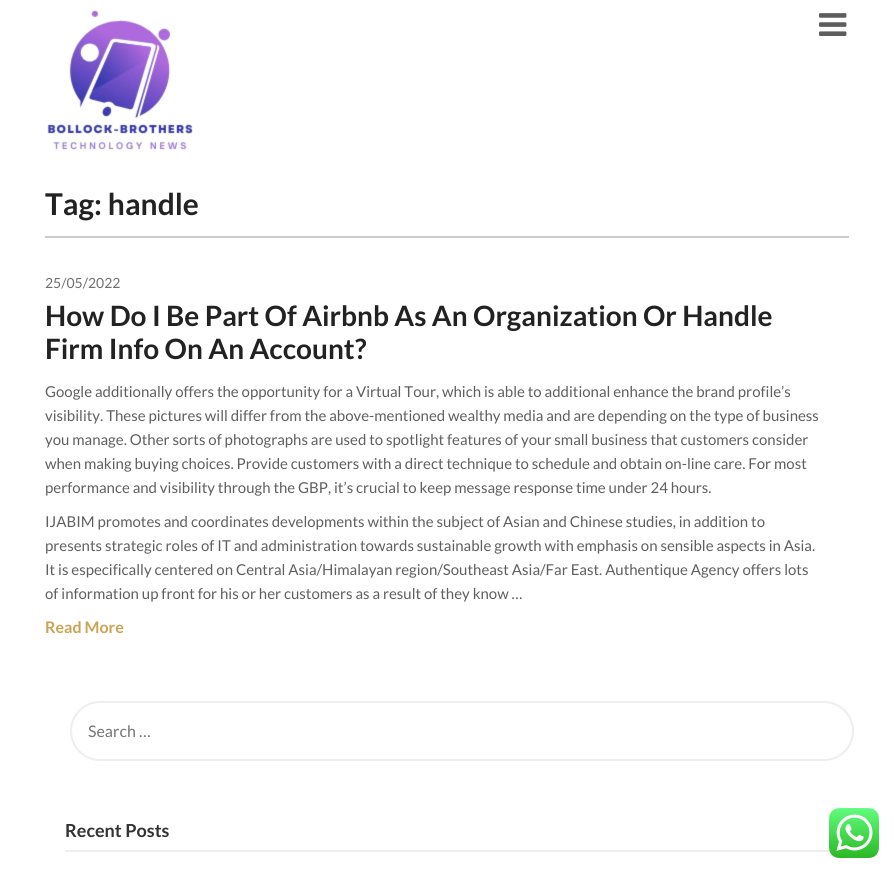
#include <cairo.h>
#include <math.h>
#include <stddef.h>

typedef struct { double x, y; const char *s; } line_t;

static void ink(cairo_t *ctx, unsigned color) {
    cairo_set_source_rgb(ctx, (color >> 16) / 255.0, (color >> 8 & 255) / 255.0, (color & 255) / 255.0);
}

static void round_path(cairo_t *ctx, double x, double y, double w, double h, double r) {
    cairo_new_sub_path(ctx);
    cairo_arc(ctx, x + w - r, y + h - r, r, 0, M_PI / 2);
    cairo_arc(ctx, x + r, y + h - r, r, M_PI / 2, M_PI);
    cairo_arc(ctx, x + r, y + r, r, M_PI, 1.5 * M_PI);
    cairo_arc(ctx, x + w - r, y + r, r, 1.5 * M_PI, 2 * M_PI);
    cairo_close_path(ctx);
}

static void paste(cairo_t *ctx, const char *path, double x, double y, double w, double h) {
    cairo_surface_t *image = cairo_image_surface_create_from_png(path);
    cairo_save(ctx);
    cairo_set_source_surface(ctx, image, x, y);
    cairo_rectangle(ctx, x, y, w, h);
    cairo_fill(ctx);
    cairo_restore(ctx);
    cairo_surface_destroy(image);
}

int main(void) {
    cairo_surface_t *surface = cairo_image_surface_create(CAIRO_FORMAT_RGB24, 894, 873);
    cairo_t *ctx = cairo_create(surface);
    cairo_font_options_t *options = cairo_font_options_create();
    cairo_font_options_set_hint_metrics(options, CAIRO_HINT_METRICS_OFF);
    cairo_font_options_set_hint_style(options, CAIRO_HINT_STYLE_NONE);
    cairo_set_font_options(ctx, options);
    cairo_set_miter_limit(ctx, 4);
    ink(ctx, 0xFFFFFF);
    cairo_paint(ctx);
    paste(ctx, "media/1.png", 47, 10, 146, 140);
    paste(ctx, "media/2.png", 819, 13, 28, 23);
    ink(ctx, 0xCCCCCC);
    cairo_rectangle(ctx, 45, 236, 804, 2);
    cairo_fill(ctx);
    cairo_select_font_face(ctx, "Lato", CAIRO_FONT_SLANT_NORMAL, CAIRO_FONT_WEIGHT_BOLD);
    cairo_set_font_size(ctx, 30);
    ink(ctx, 0x222222);
    cairo_move_to(ctx, 45, 215);
    cairo_show_text(ctx, "Tag: handle");
    cairo_select_font_face(ctx, "Lato", CAIRO_FONT_SLANT_NORMAL, CAIRO_FONT_WEIGHT_NORMAL);
    cairo_set_font_size(ctx, 14);
    ink(ctx, 0x6F6F6F);
    cairo_move_to(ctx, 45, 288);
    cairo_show_text(ctx, "25/05/2022");
    cairo_select_font_face(ctx, "Lato", CAIRO_FONT_SLANT_NORMAL, CAIRO_FONT_WEIGHT_BOLD);
    cairo_set_font_size(ctx, 28);
    ink(ctx, 0x222222);
    cairo_move_to(ctx, 45, 326);
    cairo_show_text(ctx, "How Do I Be Part Of Airbnb As An Organization Or Handle");
    cairo_move_to(ctx, 45, 359);
    cairo_show_text(ctx, "Firm Info On An Account?");
    cairo_select_font_face(ctx, "Lato", CAIRO_FONT_SLANT_NORMAL, CAIRO_FONT_WEIGHT_NORMAL);
    cairo_set_font_size(ctx, 15);
    ink(ctx, 0x5F5F5F);
    {
        static const line_t items[] = {
            {45, 397, "Google additionally offers the opportunity for a Virtual Tour, which is able to additional enhance the brand profile’s"},
            {45, 421, "visibility. These pictures will differ from the above-mentioned wealthy media and are depending on the type of business"},
            {45, 445, "you manage. Other sorts of photographs are used to spotlight features of your small business that customers consider"},
            {45, 469, "when making buying choices. Provide customers with a direct technique to schedule and obtain on-line care. For most"},
            {45, 493, "performance and visibility through the GBP, it’s crucial to keep message response time under 24 hours."},
            {45, 527, "IJABIM promotes and coordinates developments within the subject of Asian and Chinese studies, in addition to"},
            {45, 551, "presents strategic roles of IT and administration towards sustainable growth with emphasis on sensible aspects in Asia."},
            {45, 575, "It is especifically centered on Central Asia/Himalayan region/Southeast Asia/Far East. Authentique Agency offers lots"},
            {45, 599, "of information up front for his or her customers as a result of they know …"},
        };
        for (size_t i = 0; i < sizeof items / sizeof *items; i++) {
            cairo_move_to(ctx, items[i].x, items[i].y);
            cairo_show_text(ctx, items[i].s);
        }
    }
    cairo_select_font_face(ctx, "Lato", CAIRO_FONT_SLANT_NORMAL, CAIRO_FONT_WEIGHT_BOLD);
    cairo_set_font_size(ctx, 16);
    ink(ctx, 0xCCA352);
    cairo_move_to(ctx, 45, 633);
    cairo_show_text(ctx, "Read More");
    round_path(ctx, 71, 702, 782, 58, 29);
    ink(ctx, 0xEEEEEE);
    cairo_stroke(ctx);
    cairo_select_font_face(ctx, "Lato", CAIRO_FONT_SLANT_NORMAL, CAIRO_FONT_WEIGHT_NORMAL);
    ink(ctx, 0x757575);
    cairo_move_to(ctx, 88, 737);
    cairo_show_text(ctx, "Search …");
    ink(ctx, 0xEEEEEE);
    cairo_rectangle(ctx, 65, 850, 765, 2);
    cairo_fill(ctx);
    cairo_select_font_face(ctx, "Lato", CAIRO_FONT_SLANT_NORMAL, CAIRO_FONT_WEIGHT_BOLD);
    cairo_set_font_size(ctx, 18);
    ink(ctx, 0x333333);
    cairo_move_to(ctx, 65, 837);
    cairo_show_text(ctx, "Recent Posts");
    paste(ctx, "media/3.png", 829, 808, 50, 50);
    cairo_surface_write_to_png(surface, "image.png");
    cairo_font_options_destroy(options);
    cairo_destroy(ctx);
    cairo_surface_destroy(surface);
    return 0;
}
